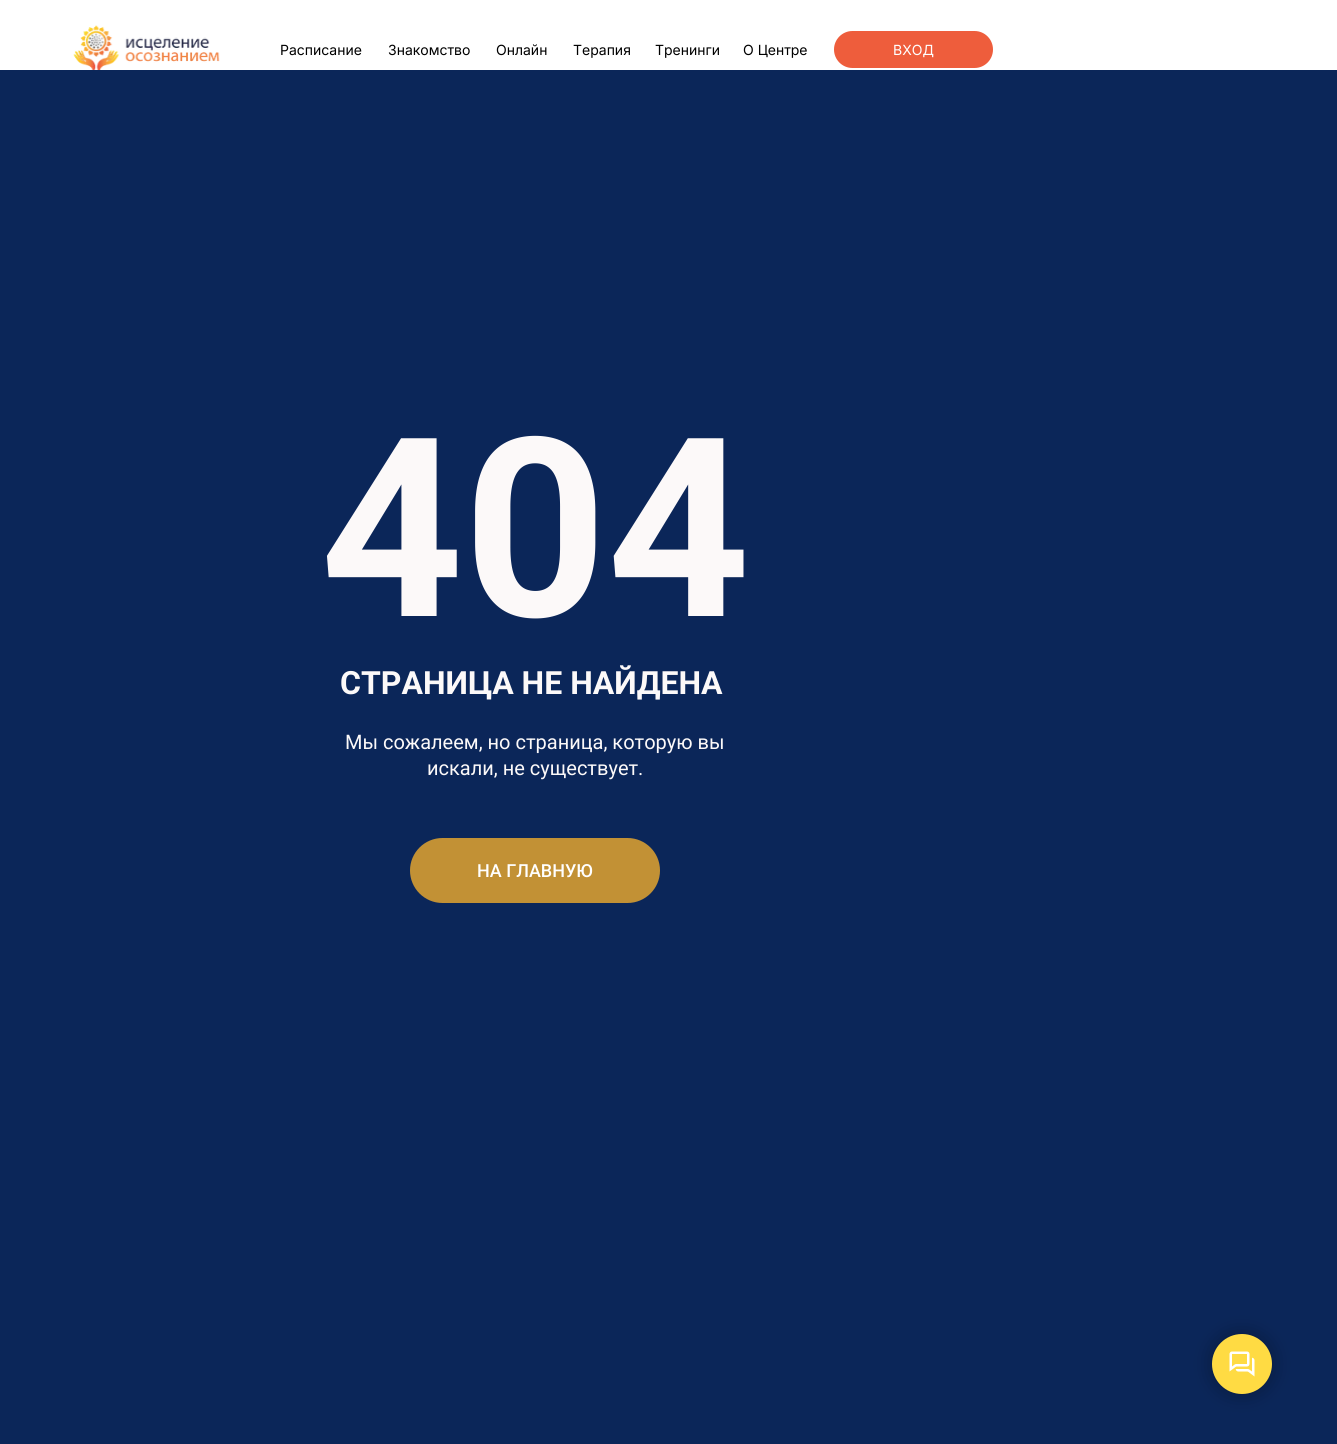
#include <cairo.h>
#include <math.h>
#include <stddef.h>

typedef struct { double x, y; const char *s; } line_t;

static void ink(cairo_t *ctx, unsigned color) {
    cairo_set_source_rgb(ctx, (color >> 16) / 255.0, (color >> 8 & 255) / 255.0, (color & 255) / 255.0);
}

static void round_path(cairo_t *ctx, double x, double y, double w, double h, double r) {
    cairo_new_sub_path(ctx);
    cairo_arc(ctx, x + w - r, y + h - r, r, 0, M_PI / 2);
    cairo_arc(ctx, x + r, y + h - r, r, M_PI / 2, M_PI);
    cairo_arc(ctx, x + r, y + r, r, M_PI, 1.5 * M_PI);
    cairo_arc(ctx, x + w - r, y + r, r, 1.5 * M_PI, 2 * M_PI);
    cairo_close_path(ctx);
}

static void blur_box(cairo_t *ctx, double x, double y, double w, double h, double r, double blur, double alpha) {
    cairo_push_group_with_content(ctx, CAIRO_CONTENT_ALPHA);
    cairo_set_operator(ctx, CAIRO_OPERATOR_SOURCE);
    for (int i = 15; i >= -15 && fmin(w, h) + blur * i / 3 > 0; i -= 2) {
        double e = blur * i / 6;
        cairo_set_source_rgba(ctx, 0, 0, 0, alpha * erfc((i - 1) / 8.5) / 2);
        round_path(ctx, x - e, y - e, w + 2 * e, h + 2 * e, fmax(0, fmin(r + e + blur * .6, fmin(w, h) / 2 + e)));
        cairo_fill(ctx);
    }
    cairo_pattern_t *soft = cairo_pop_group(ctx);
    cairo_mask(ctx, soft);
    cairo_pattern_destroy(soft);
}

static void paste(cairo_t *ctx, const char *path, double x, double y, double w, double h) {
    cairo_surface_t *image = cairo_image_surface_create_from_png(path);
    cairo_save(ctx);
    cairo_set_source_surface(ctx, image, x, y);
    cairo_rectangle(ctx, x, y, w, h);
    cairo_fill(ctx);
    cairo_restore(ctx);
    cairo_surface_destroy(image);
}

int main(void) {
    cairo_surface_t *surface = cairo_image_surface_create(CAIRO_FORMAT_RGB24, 1337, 1444);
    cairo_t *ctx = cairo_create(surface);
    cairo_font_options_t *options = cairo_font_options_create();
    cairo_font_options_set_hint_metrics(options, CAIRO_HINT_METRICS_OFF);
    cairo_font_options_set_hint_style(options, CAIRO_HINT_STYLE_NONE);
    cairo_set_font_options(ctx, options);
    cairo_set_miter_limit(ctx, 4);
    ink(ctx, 0x0B2659);
    cairo_paint(ctx);
    ink(ctx, 0xFFFFFF);
    cairo_rectangle(ctx, 0, 0, 1337, 70);
    cairo_fill(ctx);
    paste(ctx, "media/1.png", 73, 25, 147, 45);
    cairo_select_font_face(ctx, "Inter", CAIRO_FONT_SLANT_NORMAL, CAIRO_FONT_WEIGHT_NORMAL);
    cairo_set_font_size(ctx, 14);
    ink(ctx, 0x000000);
    {
        static const line_t items[] = {
            {280, 55, "Расписание"},
            {388, 55, "Знакомство"},
            {496, 55, "Онлайн"},
            {573, 55, "Терапия"},
            {655, 55, "Тренинги"},
            {743, 55, "О Центре"},
        };
        for (size_t i = 0; i < sizeof items / sizeof *items; i++) {
            cairo_move_to(ctx, items[i].x, items[i].y);
            cairo_show_text(ctx, items[i].s);
        }
    }
    ink(ctx, 0xEE5D3C);
    round_path(ctx, 834, 31, 159, 37, 18.5);
    cairo_fill(ctx);
    ink(ctx, 0xFFFFFF);
    cairo_move_to(ctx, 893, 55);
    cairo_show_text(ctx, "ВХОД");
    ink(ctx, 0x000000);
    blur_box(ctx, 1212, 1334, 60, 60, 30, 10, 0.3);
    ink(ctx, 0xFFDB43);
    cairo_arc(ctx, 1242, 1364, 30, 0, 2 * M_PI);
    cairo_fill(ctx);
    paste(ctx, "media/2.png", 1229, 1351, 26, 26);
    cairo_select_font_face(ctx, "Roboto", CAIRO_FONT_SLANT_NORMAL, CAIRO_FONT_WEIGHT_BOLD);
    cairo_set_font_size(ctx, 250);
    ink(ctx, 0xFCF9F9);
    cairo_move_to(ctx, 320, 616);
    cairo_show_text(ctx, "404");
    cairo_set_font_size(ctx, 32);
    cairo_move_to(ctx, 340, 694);
    cairo_show_text(ctx, "СТРАНИЦА НЕ НАЙДЕНА");
    cairo_select_font_face(ctx, "Roboto", CAIRO_FONT_SLANT_NORMAL, CAIRO_FONT_WEIGHT_NORMAL);
    cairo_set_font_size(ctx, 20);
    cairo_move_to(ctx, 345, 749);
    cairo_show_text(ctx, "Мы сожалеем, но страница, которую вы");
    cairo_move_to(ctx, 427, 775);
    cairo_show_text(ctx, "искали, не существует.");
    ink(ctx, 0xC29135);
    round_path(ctx, 410, 838, 250, 65, 32.5);
    cairo_fill(ctx);
    cairo_select_font_face(ctx, "Roboto Medium", CAIRO_FONT_SLANT_NORMAL, CAIRO_FONT_WEIGHT_NORMAL);
    cairo_set_font_size(ctx, 18);
    ink(ctx, 0xFFFFFF);
    cairo_move_to(ctx, 477, 877);
    cairo_show_text(ctx, "НА ГЛАВНУЮ");
    cairo_surface_write_to_png(surface, "image.png");
    cairo_font_options_destroy(options);
    cairo_destroy(ctx);
    cairo_surface_destroy(surface);
    return 0;
}
